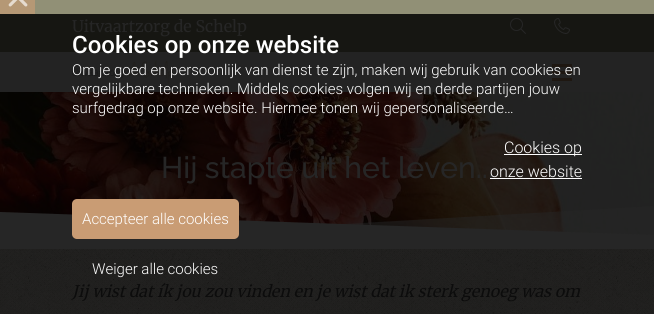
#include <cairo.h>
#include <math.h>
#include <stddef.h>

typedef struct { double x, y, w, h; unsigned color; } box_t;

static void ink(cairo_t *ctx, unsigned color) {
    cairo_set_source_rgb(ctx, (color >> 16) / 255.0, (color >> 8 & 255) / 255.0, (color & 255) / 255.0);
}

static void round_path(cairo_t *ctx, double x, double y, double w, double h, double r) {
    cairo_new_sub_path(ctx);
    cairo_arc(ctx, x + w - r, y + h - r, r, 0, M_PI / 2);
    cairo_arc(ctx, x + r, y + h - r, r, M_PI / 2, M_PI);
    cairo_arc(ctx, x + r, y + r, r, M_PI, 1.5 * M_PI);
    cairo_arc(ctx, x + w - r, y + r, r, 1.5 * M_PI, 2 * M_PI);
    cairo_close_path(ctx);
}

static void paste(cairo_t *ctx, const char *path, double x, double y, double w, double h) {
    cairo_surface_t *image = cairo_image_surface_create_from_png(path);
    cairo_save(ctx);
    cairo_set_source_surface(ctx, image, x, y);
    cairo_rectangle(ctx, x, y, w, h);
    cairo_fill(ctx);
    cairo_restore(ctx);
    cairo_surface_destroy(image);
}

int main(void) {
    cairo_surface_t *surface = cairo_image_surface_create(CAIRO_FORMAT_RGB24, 654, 314);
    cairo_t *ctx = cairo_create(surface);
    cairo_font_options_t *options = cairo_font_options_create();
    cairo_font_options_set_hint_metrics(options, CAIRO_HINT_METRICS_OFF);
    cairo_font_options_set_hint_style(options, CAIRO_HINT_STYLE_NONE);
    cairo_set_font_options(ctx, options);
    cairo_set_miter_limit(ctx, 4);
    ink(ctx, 0xFFFFFF);
    cairo_paint(ctx);
    paste(ctx, "media/1.png", 0, 249, 654, 65);
    {
        static const box_t items[] = {
            {0, 52, 654, 40, 0x232323},
            {35, 0, 619, 14, 0x919076},
            {0, 14, 654, 38, 0x161612},
        };
        for (size_t i = 0; i < sizeof items / sizeof *items; i++) {
            ink(ctx, items[i].color);
            cairo_rectangle(ctx, items[i].x, items[i].y, items[i].w, items[i].h);
            cairo_fill(ctx);
        }
    }
    cairo_select_font_face(ctx, "Merriweather Light", CAIRO_FONT_SLANT_NORMAL, CAIRO_FONT_WEIGHT_NORMAL);
    cairo_set_font_size(ctx, 16);
    ink(ctx, 0x262626);
    cairo_move_to(ctx, 72, 32);
    cairo_show_text(ctx, "Uitvaartzorg de Schelp");
    paste(ctx, "media/2.png", 510, 18, 16, 16);
    paste(ctx, "media/3.png", 554, 18, 16, 16);
    paste(ctx, "media/4.png", 72, 60, 101, 24);
    {
        static const box_t items[] = {
            {552, 71, 20, 3, 0x1E1711},
            {552, 64, 20, 3, 0x1E1711},
            {552, 78, 20, 3, 0x1E1711},
            {0, 0, 35, 14, 0xB59875},
        };
        for (size_t i = 0; i < sizeof items / sizeof *items; i++) {
            ink(ctx, items[i].color);
            cairo_rectangle(ctx, items[i].x, items[i].y, items[i].w, items[i].h);
            cairo_fill(ctx);
        }
    }
    paste(ctx, "media/5.png", 8, 0, 20, 7);
    cairo_select_font_face(ctx, "Roboto Medium", CAIRO_FONT_SLANT_NORMAL, CAIRO_FONT_WEIGHT_NORMAL);
    cairo_set_font_size(ctx, 24);
    ink(ctx, 0xFFFFFF);
    cairo_move_to(ctx, 72, 53);
    cairo_show_text(ctx, "Cookies op onze website");
    cairo_select_font_face(ctx, "Roboto Light", CAIRO_FONT_SLANT_NORMAL, CAIRO_FONT_WEIGHT_NORMAL);
    cairo_set_font_size(ctx, 15);
    cairo_move_to(ctx, 72, 75);
    cairo_show_text(ctx, "Om je goed en persoonlijk van dienst te zijn, maken wij gebruik van cookies en");
    paste(ctx, "media/6.png", 0, 92, 654, 143);
    cairo_move_to(ctx, 72, 94);
    cairo_show_text(ctx, "vergelijkbare technieken. Middels cookies volgen wij en derde partijen jouw");
    cairo_move_to(ctx, 72, 113);
    cairo_show_text(ctx, "surfgedrag op onze website. Hiermee tonen wij gepersonaliseerde…");
    cairo_rectangle(ctx, 504, 154, 78, 1);
    cairo_fill(ctx);
    cairo_set_font_size(ctx, 16);
    cairo_move_to(ctx, 504, 153);
    cairo_show_text(ctx, "Cookies op");
    cairo_select_font_face(ctx, "Raleway Thin", CAIRO_FONT_SLANT_NORMAL, CAIRO_FONT_WEIGHT_NORMAL);
    cairo_set_font_size(ctx, 30);
    ink(ctx, 0x262626);
    cairo_move_to(ctx, 161, 178);
    cairo_show_text(ctx, "Hij stapte uit het leven...");
    cairo_select_font_face(ctx, "Roboto Light", CAIRO_FONT_SLANT_NORMAL, CAIRO_FONT_WEIGHT_NORMAL);
    cairo_set_font_size(ctx, 16);
    ink(ctx, 0xFFFFFF);
    cairo_move_to(ctx, 490, 177);
    cairo_show_text(ctx, "onze website");
    cairo_rectangle(ctx, 490, 178, 92, 1);
    cairo_fill(ctx);
    cairo_save(ctx);
    cairo_rectangle(ctx, 0, 206, 654, 43);
    cairo_clip(ctx);
    cairo_set_source_rgba(ctx, 0.149, 0.149, 0.149, 0.5);
    cairo_new_path(ctx);
    cairo_move_to(ctx, 0, 244);
    cairo_line_to(ctx, 654, 206);
    cairo_line_to(ctx, 654, 251);
    cairo_line_to(ctx, 0, 251);
    cairo_close_path(ctx);
    cairo_fill(ctx);
    ink(ctx, 0x262626);
    cairo_new_path(ctx);
    cairo_move_to(ctx, 654, 235);
    cairo_line_to(ctx, 0, 212);
    cairo_line_to(ctx, 0, 251);
    cairo_line_to(ctx, 654, 251);
    cairo_close_path(ctx);
    cairo_fill(ctx);
    cairo_restore(ctx);
    ink(ctx, 0xC99C74);
    round_path(ctx, 72, 199, 167, 40, 5);
    cairo_fill(ctx);
    cairo_set_font_size(ctx, 15);
    ink(ctx, 0xFFFFFF);
    cairo_move_to(ctx, 82, 224);
    cairo_show_text(ctx, "Accepteer alle cookies");
    cairo_move_to(ctx, 92, 274);
    cairo_show_text(ctx, "Weiger alle cookies");
    cairo_select_font_face(ctx, "Merriweather Light", CAIRO_FONT_SLANT_ITALIC, CAIRO_FONT_WEIGHT_NORMAL);
    cairo_set_font_size(ctx, 16);
    ink(ctx, 0x0C0C0C);
    cairo_move_to(ctx, 72, 297);
    cairo_show_text(ctx, "Jij wist dat ík jou zou vinden en je wist dat ik sterk genoeg was om");
    cairo_surface_write_to_png(surface, "image.png");
    cairo_font_options_destroy(options);
    cairo_destroy(ctx);
    cairo_surface_destroy(surface);
    return 0;
}
